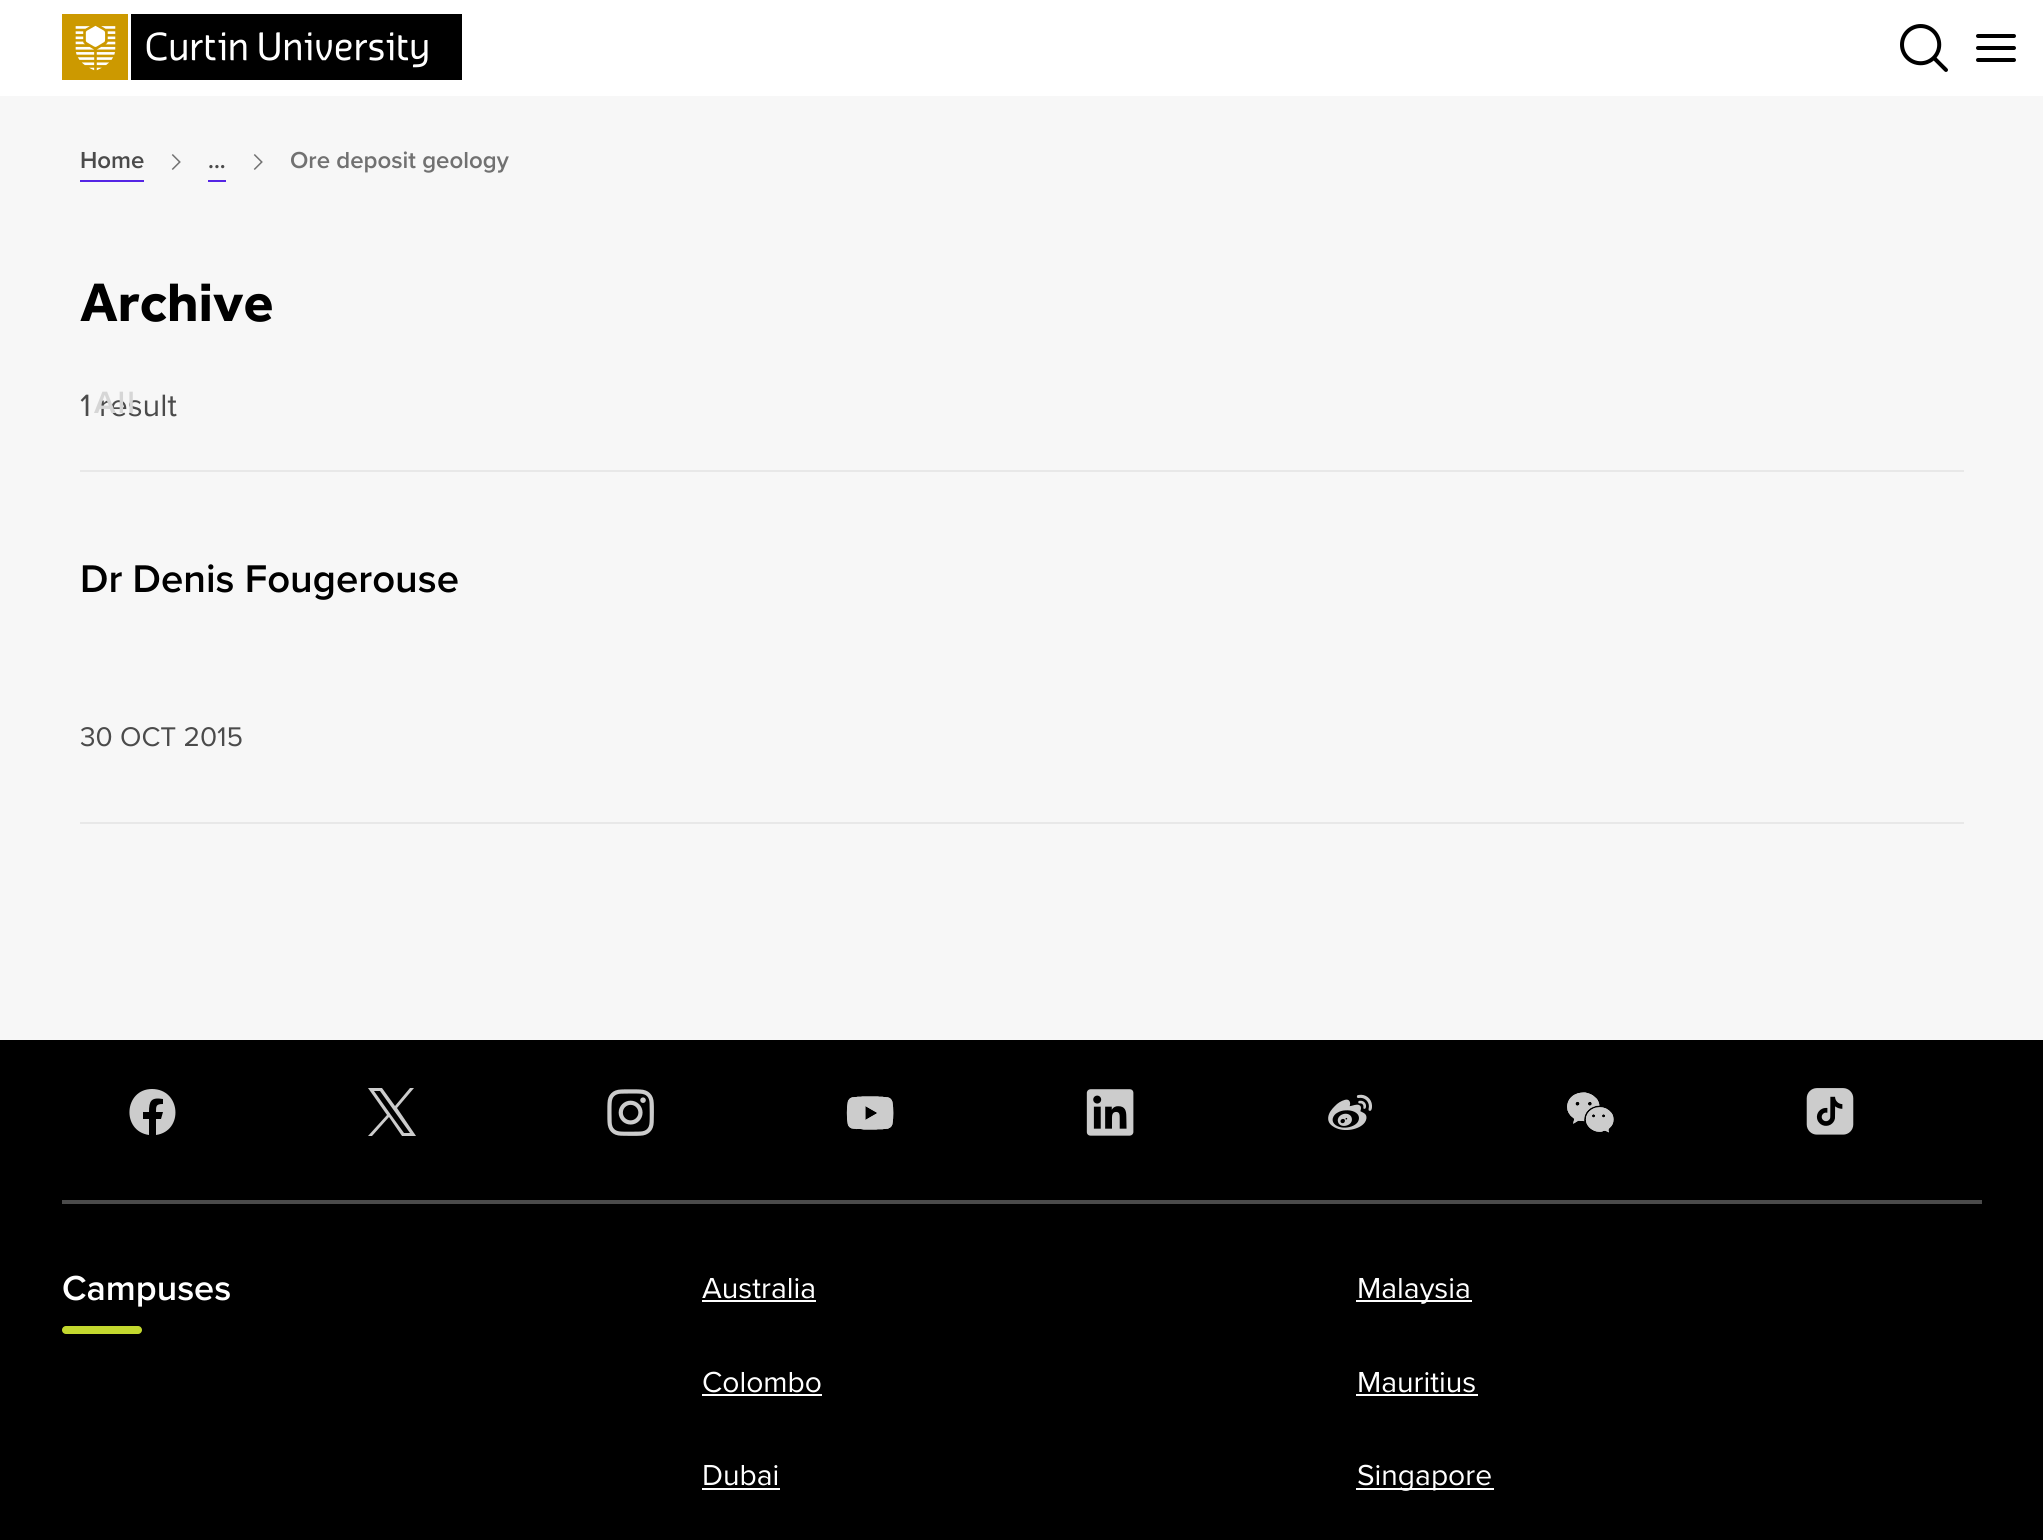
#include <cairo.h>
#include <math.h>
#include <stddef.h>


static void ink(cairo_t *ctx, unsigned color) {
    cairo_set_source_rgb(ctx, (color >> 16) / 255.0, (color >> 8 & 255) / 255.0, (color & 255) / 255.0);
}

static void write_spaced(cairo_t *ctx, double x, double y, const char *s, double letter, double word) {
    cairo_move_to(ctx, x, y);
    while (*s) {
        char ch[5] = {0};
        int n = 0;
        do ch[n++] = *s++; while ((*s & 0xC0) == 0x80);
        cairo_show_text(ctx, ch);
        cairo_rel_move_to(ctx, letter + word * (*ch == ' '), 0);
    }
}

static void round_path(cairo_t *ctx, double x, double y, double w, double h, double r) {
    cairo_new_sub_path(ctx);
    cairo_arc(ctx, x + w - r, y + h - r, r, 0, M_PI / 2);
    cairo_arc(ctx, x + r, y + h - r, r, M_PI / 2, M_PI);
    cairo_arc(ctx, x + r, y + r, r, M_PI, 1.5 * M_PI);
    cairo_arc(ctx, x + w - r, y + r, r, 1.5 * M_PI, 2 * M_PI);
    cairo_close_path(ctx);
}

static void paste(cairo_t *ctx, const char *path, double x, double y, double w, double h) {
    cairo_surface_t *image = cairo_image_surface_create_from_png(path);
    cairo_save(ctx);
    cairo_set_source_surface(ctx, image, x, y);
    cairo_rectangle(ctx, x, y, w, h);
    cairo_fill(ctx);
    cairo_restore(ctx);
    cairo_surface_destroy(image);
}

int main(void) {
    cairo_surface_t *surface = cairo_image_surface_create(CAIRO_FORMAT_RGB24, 2043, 1540);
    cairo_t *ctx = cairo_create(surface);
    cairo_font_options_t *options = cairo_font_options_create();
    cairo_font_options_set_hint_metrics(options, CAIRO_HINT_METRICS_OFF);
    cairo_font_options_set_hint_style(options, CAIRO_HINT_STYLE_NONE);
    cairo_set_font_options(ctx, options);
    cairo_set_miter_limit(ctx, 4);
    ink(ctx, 0xF7F7F7);
    cairo_paint(ctx);
    ink(ctx, 0xFFFFFF);
    cairo_rectangle(ctx, 0, 0, 2043, 96);
    cairo_fill(ctx);
    paste(ctx, "media/1.png", 62, 14, 400, 66);
    paste(ctx, "media/2.png", 1900, 24, 48, 48);
    ink(ctx, 0x000000);
    round_path(ctx, 1976, 46, 40, 4, 2);
    cairo_fill(ctx);
    round_path(ctx, 1976, 34, 40, 4, 2);
    cairo_fill(ctx);
    round_path(ctx, 1976, 58, 40, 4, 2);
    cairo_fill(ctx);
    cairo_select_font_face(ctx, "Proxima Nova SemiBold", CAIRO_FONT_SLANT_NORMAL, CAIRO_FONT_WEIGHT_NORMAL);
    cairo_set_font_size(ctx, 24);
    ink(ctx, 0x4B4B4B);
    cairo_move_to(ctx, 80, 168);
    cairo_show_text(ctx, "Home");
    ink(ctx, 0x5525E5);
    cairo_rectangle(ctx, 80, 180, 64, 2);
    cairo_fill(ctx);
    paste(ctx, "media/3.png", 171, 154, 10, 16);
    ink(ctx, 0x4B4B4B);
    cairo_move_to(ctx, 208, 168);
    cairo_show_text(ctx, "...");
    ink(ctx, 0x5525E5);
    cairo_rectangle(ctx, 208, 180, 18, 2);
    cairo_fill(ctx);
    paste(ctx, "media/3.png", 253, 154, 10, 16);
    ink(ctx, 0x717171);
    cairo_move_to(ctx, 290, 168);
    cairo_show_text(ctx, "Ore deposit geology");
    ink(ctx, 0xE8E8E8);
    cairo_rectangle(ctx, 80, 470, 1884, 2);
    cairo_fill(ctx);
    cairo_select_font_face(ctx, "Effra", CAIRO_FONT_SLANT_NORMAL, CAIRO_FONT_WEIGHT_BOLD);
    cairo_set_font_size(ctx, 56);
    ink(ctx, 0x000000);
    cairo_move_to(ctx, 80, 321);
    cairo_show_text(ctx, "Archive");
    cairo_select_font_face(ctx, "Proxima Nova", CAIRO_FONT_SLANT_NORMAL, CAIRO_FONT_WEIGHT_NORMAL);
    cairo_set_font_size(ctx, 32);
    ink(ctx, 0x4B4B4B);
    cairo_move_to(ctx, 80, 416);
    cairo_show_text(ctx, "1 result");
    ink(ctx, 0xE8E8E8);
    cairo_rectangle(ctx, 80, 822, 1884, 2);
    cairo_fill(ctx);
    cairo_select_font_face(ctx, "Proxima Nova SemiBold", CAIRO_FONT_SLANT_NORMAL, CAIRO_FONT_WEIGHT_NORMAL);
    cairo_set_font_size(ctx, 40);
    ink(ctx, 0x000000);
    cairo_move_to(ctx, 80, 592);
    cairo_show_text(ctx, "Dr Denis Fougerouse");
    cairo_select_font_face(ctx, "Proxima Nova", CAIRO_FONT_SLANT_NORMAL, CAIRO_FONT_WEIGHT_NORMAL);
    cairo_set_font_size(ctx, 28);
    ink(ctx, 0x4B4B4B);
    cairo_move_to(ctx, 80, 746);
    cairo_show_text(ctx, "30 OCT 2015");
    cairo_select_font_face(ctx, "Proxima Nova SemiBold", CAIRO_FONT_SLANT_NORMAL, CAIRO_FONT_WEIGHT_NORMAL);
    cairo_set_font_size(ctx, 32);
    ink(ctx, 0xD6D6D6);
    write_spaced(ctx, 94, 413, "All", 2, 0);
    ink(ctx, 0x000000);
    cairo_rectangle(ctx, 0, 1040, 2043, 500);
    cairo_fill(ctx);
    ink(ctx, 0x4B4B4B);
    cairo_rectangle(ctx, 62, 1200, 1920, 4);
    cairo_fill(ctx);
    ink(ctx, 0xCCCCCC);
    cairo_new_path(ctx);
    cairo_move_to(ctx, 152, 1089);
    cairo_curve_to(ctx, 124, 1089, 121, 1131, 149, 1135);
    cairo_line_to(ctx, 149, 1119);
    cairo_line_to(ctx, 143, 1119);
    cairo_line_to(ctx, 143, 1112);
    cairo_line_to(ctx, 149, 1112);
    cairo_curve_to(ctx, 149, 1101, 151, 1097, 163, 1099);
    cairo_line_to(ctx, 163, 1104);
    cairo_curve_to(ctx, 156, 1104, 156, 1106, 156, 1112);
    cairo_line_to(ctx, 163, 1112);
    cairo_line_to(ctx, 161, 1119);
    cairo_line_to(ctx, 156, 1119);
    cairo_line_to(ctx, 156, 1135);
    cairo_curve_to(ctx, 184, 1131, 181, 1089, 152, 1089);
    cairo_close_path(ctx);
    cairo_fill(ctx);
    cairo_new_path(ctx);
    cairo_move_to(ctx, 397, 1108);
    cairo_line_to(ctx, 414, 1088);
    cairo_line_to(ctx, 410, 1088);
    cairo_line_to(ctx, 395, 1106);
    cairo_line_to(ctx, 382, 1088);
    cairo_line_to(ctx, 368, 1088);
    cairo_line_to(ctx, 387, 1115);
    cairo_line_to(ctx, 368, 1136);
    cairo_line_to(ctx, 372, 1136);
    cairo_line_to(ctx, 389, 1117);
    cairo_line_to(ctx, 402, 1136);
    cairo_line_to(ctx, 416, 1136);
    cairo_close_path(ctx);
    cairo_move_to(ctx, 391, 1115);
    cairo_line_to(ctx, 374, 1091);
    cairo_line_to(ctx, 380, 1091);
    cairo_line_to(ctx, 410, 1133);
    cairo_line_to(ctx, 404, 1133);
    cairo_close_path(ctx);
    cairo_fill(ctx);
    paste(ctx, "media/4.png", 607, 1089, 47, 47);
    paste(ctx, "media/5.png", 846, 1096, 48, 34);
    paste(ctx, "media/6.png", 1086, 1089, 48, 47);
    paste(ctx, "media/7.png", 1328, 1094, 44, 36);
    paste(ctx, "media/8.png", 1567, 1092, 47, 41);
    paste(ctx, "media/9.png", 1806, 1088, 48, 47);
    cairo_set_font_size(ctx, 36);
    ink(ctx, 0xFFFFFF);
    cairo_move_to(ctx, 62, 1300);
    cairo_show_text(ctx, "Campuses");
    ink(ctx, 0xC3D82E);
    round_path(ctx, 62, 1326, 80, 8, 4);
    cairo_fill(ctx);
    cairo_select_font_face(ctx, "Proxima Nova", CAIRO_FONT_SLANT_NORMAL, CAIRO_FONT_WEIGHT_NORMAL);
    cairo_set_font_size(ctx, 30);
    ink(ctx, 0xFFFFFF);
    cairo_move_to(ctx, 702, 1298);
    cairo_show_text(ctx, "Australia");
    cairo_rectangle(ctx, 702, 1300, 114, 2);
    cairo_fill(ctx);
    cairo_rectangle(ctx, 1356, 1300, 116, 2);
    cairo_fill(ctx);
    cairo_move_to(ctx, 1357, 1298);
    cairo_show_text(ctx, "Malaysia");
    cairo_move_to(ctx, 702, 1392);
    cairo_show_text(ctx, "Colombo");
    cairo_rectangle(ctx, 702, 1394, 120, 2);
    cairo_fill(ctx);
    cairo_move_to(ctx, 1357, 1392);
    cairo_show_text(ctx, "Mauritius");
    cairo_rectangle(ctx, 1356, 1394, 122, 2);
    cairo_fill(ctx);
    cairo_move_to(ctx, 702, 1485);
    cairo_show_text(ctx, "Dubai");
    cairo_rectangle(ctx, 702, 1488, 78, 2);
    cairo_fill(ctx);
    cairo_rectangle(ctx, 1356, 1488, 138, 2);
    cairo_fill(ctx);
    cairo_move_to(ctx, 1357, 1485);
    cairo_show_text(ctx, "Singapore");
    cairo_surface_write_to_png(surface, "image.png");
    cairo_font_options_destroy(options);
    cairo_destroy(ctx);
    cairo_surface_destroy(surface);
    return 0;
}
